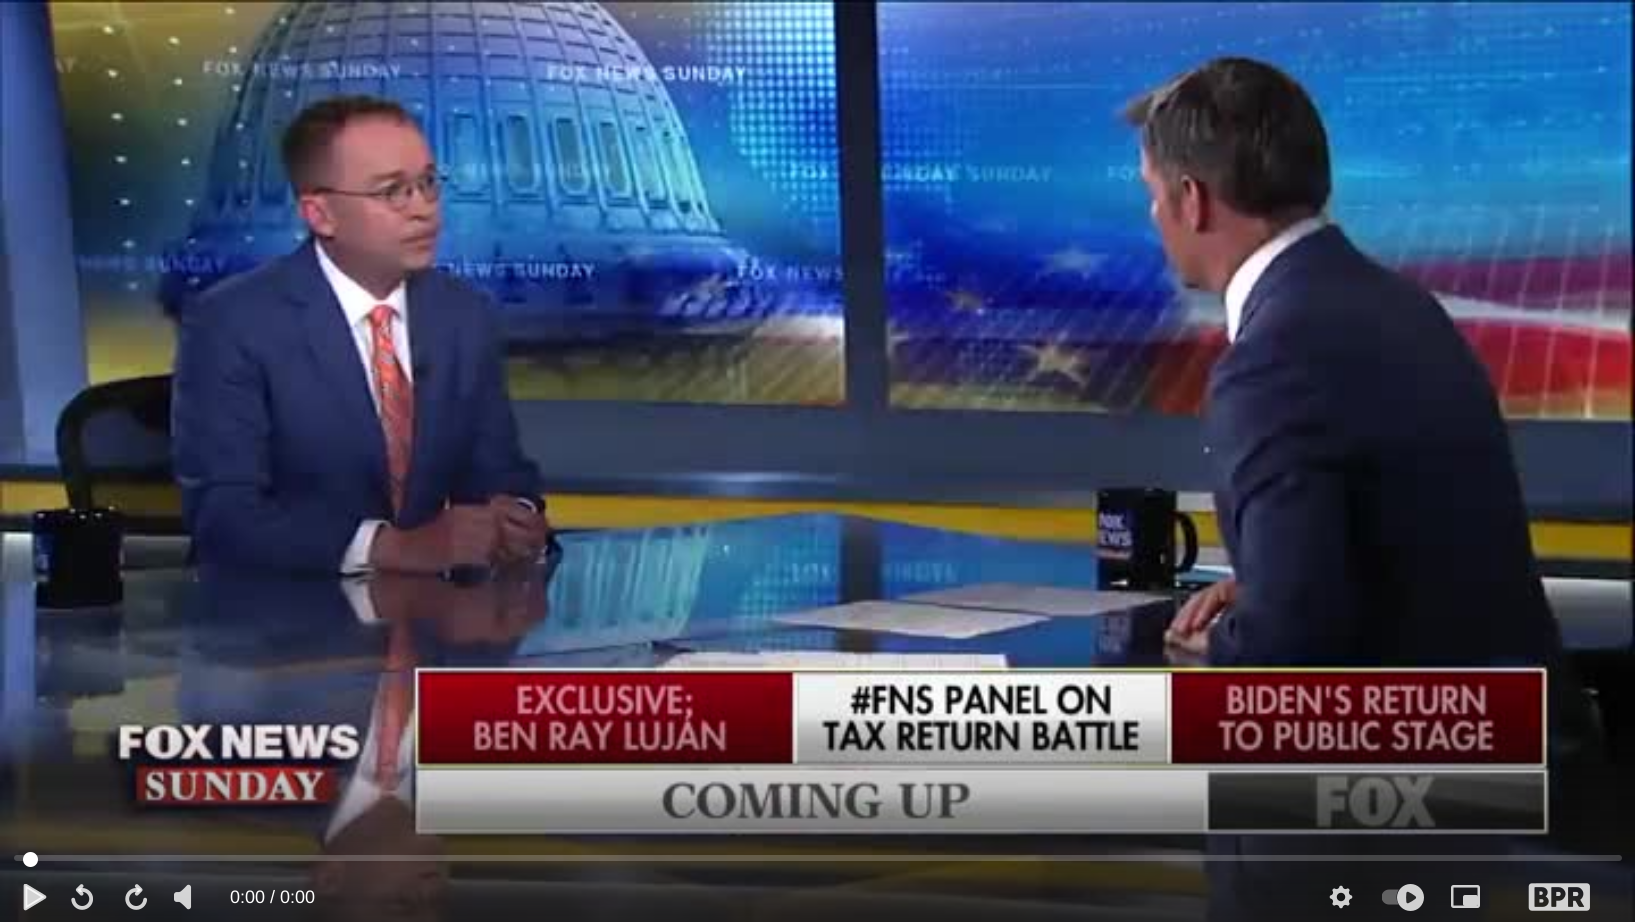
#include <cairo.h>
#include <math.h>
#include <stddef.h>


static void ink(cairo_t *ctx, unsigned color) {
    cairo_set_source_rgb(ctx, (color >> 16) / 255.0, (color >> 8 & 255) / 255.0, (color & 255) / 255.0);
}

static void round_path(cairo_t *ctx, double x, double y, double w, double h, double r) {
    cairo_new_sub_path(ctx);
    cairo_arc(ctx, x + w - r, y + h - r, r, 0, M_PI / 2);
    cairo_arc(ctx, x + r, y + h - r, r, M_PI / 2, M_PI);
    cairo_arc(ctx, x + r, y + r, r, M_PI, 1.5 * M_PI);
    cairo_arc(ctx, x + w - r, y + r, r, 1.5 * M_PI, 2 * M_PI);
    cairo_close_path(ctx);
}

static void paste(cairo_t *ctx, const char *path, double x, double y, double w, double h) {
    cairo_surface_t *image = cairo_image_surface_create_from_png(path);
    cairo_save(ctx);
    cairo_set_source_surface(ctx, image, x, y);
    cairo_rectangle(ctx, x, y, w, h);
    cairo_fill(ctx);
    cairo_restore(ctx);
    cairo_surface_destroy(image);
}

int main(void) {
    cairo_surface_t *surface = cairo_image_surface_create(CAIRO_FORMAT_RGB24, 1635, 922);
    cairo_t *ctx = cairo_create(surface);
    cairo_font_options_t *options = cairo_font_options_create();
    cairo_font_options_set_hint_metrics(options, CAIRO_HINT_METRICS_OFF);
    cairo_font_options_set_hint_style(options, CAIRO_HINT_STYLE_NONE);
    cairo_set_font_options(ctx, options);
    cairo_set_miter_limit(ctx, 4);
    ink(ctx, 0xFFFFFF);
    cairo_paint(ctx);
    paste(ctx, "media/1.png", 0, 0, 1635, 922);
    cairo_set_source_rgba(ctx, 1, 1, 1, 0.2);
    round_path(ctx, 14, 855, 1608, 6, 3);
    cairo_fill(ctx);
    ink(ctx, 0xFFFFFF);
    cairo_arc(ctx, 30.5, 859.5, 7.5, 0, 2 * M_PI);
    cairo_fill(ctx);
    cairo_set_source_rgba(ctx, 1, 1, 1, 0.8);
    cairo_new_path(ctx);
    cairo_move_to(ctx, 44.5, 897);
    cairo_line_to(ctx, 25.5, 885.5);
    cairo_line_to(ctx, 25.5, 908.5);
    cairo_close_path(ctx);
    cairo_fill(ctx);
    cairo_save(ctx);
    cairo_rectangle(ctx, 20, 884, 27, 27);
    cairo_clip(ctx);
    cairo_new_path(ctx);
    cairo_move_to(ctx, 44.5, 897);
    cairo_line_to(ctx, 25.5, 885.5);
    cairo_line_to(ctx, 25.5, 908.5);
    cairo_close_path(ctx);
    cairo_set_line_width(ctx, 3.7);
    cairo_set_line_join(ctx, CAIRO_LINE_JOIN_ROUND);
    cairo_stroke(ctx);
    cairo_restore(ctx);
    paste(ctx, "media/2.png", 71, 884, 22, 26);
    paste(ctx, "media/3.png", 125, 884, 22, 26);
    paste(ctx, "media/4.png", 174, 884, 18, 26);
    cairo_select_font_face(ctx, "Liberation Sans", CAIRO_FONT_SLANT_NORMAL, CAIRO_FONT_WEIGHT_NORMAL);
    cairo_set_font_size(ctx, 18);
    ink(ctx, 0xFFFFFF);
    cairo_move_to(ctx, 230, 903);
    cairo_show_text(ctx, "0:00 / 0:00");
    paste(ctx, "media/5.png", 1329, 885, 24, 24);
    paste(ctx, "media/6.png", 1382, 884, 42, 27);
    round_path(ctx, 1452.25, 886.25, 26.5, 20.5, 1.25);
    cairo_set_source_rgba(ctx, 1, 1, 1, 0.8);
    cairo_set_line_width(ctx, 2.5);
    cairo_stroke(ctx);
    ink(ctx, 0xD1D1D2);
    round_path(ctx, 1463.75, 895.75, 13.5, 9.5, 1.25);
    cairo_fill_preserve(ctx);
    cairo_set_line_width(ctx, 1.5);
    cairo_stroke(ctx);
    paste(ctx, "media/7.png", 1528, 883, 62, 28);
    cairo_surface_write_to_png(surface, "image.png");
    cairo_font_options_destroy(options);
    cairo_destroy(ctx);
    cairo_surface_destroy(surface);
    return 0;
}
